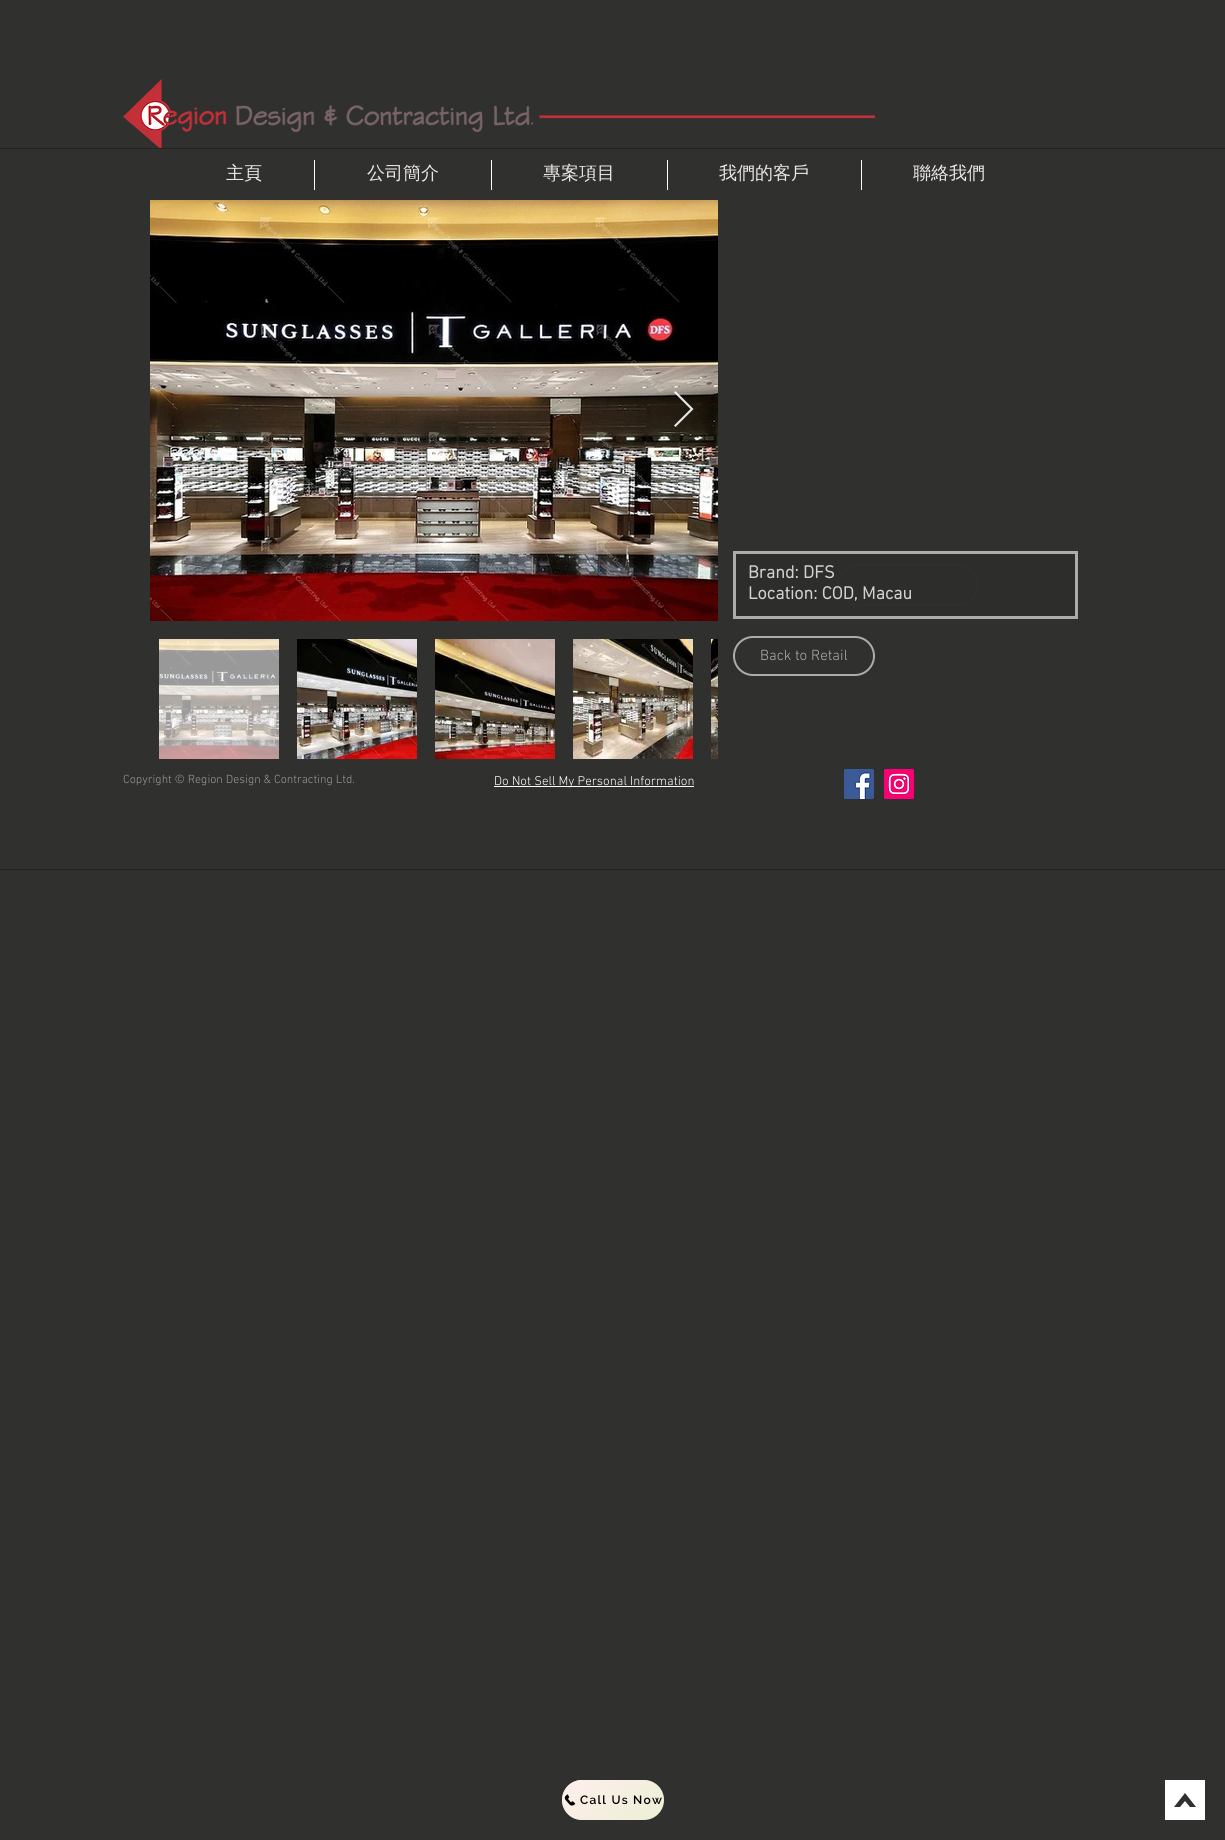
#include <cairo.h>
#include <math.h>
#include <stddef.h>


static void ink(cairo_t *ctx, unsigned color) {
    cairo_set_source_rgb(ctx, (color >> 16) / 255.0, (color >> 8 & 255) / 255.0, (color & 255) / 255.0);
}

static void write_spaced(cairo_t *ctx, double x, double y, const char *s, double letter, double word) {
    cairo_move_to(ctx, x, y);
    while (*s) {
        char ch[5] = {0};
        int n = 0;
        do ch[n++] = *s++; while ((*s & 0xC0) == 0x80);
        cairo_show_text(ctx, ch);
        cairo_rel_move_to(ctx, letter + word * (*ch == ' '), 0);
    }
}

static void round_path(cairo_t *ctx, double x, double y, double w, double h, double r) {
    cairo_new_sub_path(ctx);
    cairo_arc(ctx, x + w - r, y + h - r, r, 0, M_PI / 2);
    cairo_arc(ctx, x + r, y + h - r, r, M_PI / 2, M_PI);
    cairo_arc(ctx, x + r, y + r, r, M_PI, 1.5 * M_PI);
    cairo_arc(ctx, x + w - r, y + r, r, 1.5 * M_PI, 2 * M_PI);
    cairo_close_path(ctx);
}

static void paste(cairo_t *ctx, const char *path, double x, double y, double w, double h) {
    cairo_surface_t *image = cairo_image_surface_create_from_png(path);
    cairo_save(ctx);
    cairo_set_source_surface(ctx, image, x, y);
    cairo_rectangle(ctx, x, y, w, h);
    cairo_fill(ctx);
    cairo_restore(ctx);
    cairo_surface_destroy(image);
}

int main(void) {
    cairo_surface_t *surface = cairo_image_surface_create(CAIRO_FORMAT_RGB24, 1225, 1840);
    cairo_t *ctx = cairo_create(surface);
    cairo_font_options_t *options = cairo_font_options_create();
    cairo_font_options_set_hint_metrics(options, CAIRO_HINT_METRICS_OFF);
    cairo_font_options_set_hint_style(options, CAIRO_HINT_STYLE_NONE);
    cairo_set_font_options(ctx, options);
    cairo_set_miter_limit(ctx, 4);
    cairo_pattern_t *gradient;
    ink(ctx, 0x30302F);
    cairo_paint(ctx);
    paste(ctx, "media/1.png", 123, 79, 752, 69);
    ink(ctx, 0x242424);
    cairo_rectangle(ctx, 0, 148, 1225, 1);
    cairo_fill(ctx);
    cairo_select_font_face(ctx, "WenQuanYi Zen Hei Medium", CAIRO_FONT_SLANT_NORMAL, CAIRO_FONT_WEIGHT_NORMAL);
    cairo_set_font_size(ctx, 18);
    ink(ctx, 0xEDE8E8);
    cairo_move_to(ctx, 226, 179);
    cairo_show_text(ctx, "主頁");
    ink(ctx, 0xFFFFFF);
    cairo_rectangle(ctx, 314, 160, 1, 30);
    cairo_fill(ctx);
    ink(ctx, 0xEDE8E8);
    cairo_move_to(ctx, 367, 179);
    cairo_show_text(ctx, "公司簡介");
    ink(ctx, 0xFFFFFF);
    cairo_rectangle(ctx, 491, 160, 1, 30);
    cairo_fill(ctx);
    ink(ctx, 0xEDE8E8);
    cairo_move_to(ctx, 543, 179);
    cairo_show_text(ctx, "專案項目");
    ink(ctx, 0xFFFFFF);
    cairo_rectangle(ctx, 667, 160, 1, 30);
    cairo_fill(ctx);
    ink(ctx, 0xEDE8E8);
    cairo_move_to(ctx, 719, 179);
    cairo_show_text(ctx, "我們的客戶");
    ink(ctx, 0xFFFFFF);
    cairo_rectangle(ctx, 861, 160, 1, 30);
    cairo_fill(ctx);
    ink(ctx, 0xEDE8E8);
    cairo_move_to(ctx, 913, 179);
    cairo_show_text(ctx, "聯絡我們");
    paste(ctx, "media/2.png", 150, 200, 568, 421);
    cairo_set_source_rgba(ctx, 1, 1, 1, 0.9);
    cairo_new_path(ctx);
    cairo_move_to(ctx, 674, 392.5);
    cairo_line_to(ctx, 675.5, 391);
    cairo_line_to(ctx, 693.5, 409);
    cairo_line_to(ctx, 675.5, 427);
    cairo_line_to(ctx, 674, 425.5);
    cairo_line_to(ctx, 690.5, 409);
    cairo_close_path(ctx);
    cairo_fill(ctx);
    paste(ctx, "media/3.png", 159, 639, 120, 120);
    paste(ctx, "media/4.png", 297, 639, 120, 120);
    paste(ctx, "media/5.png", 435, 639, 120, 120);
    paste(ctx, "media/6.png", 573, 639, 120, 120);
    paste(ctx, "media/7.png", 711, 639, 7, 120);
    ink(ctx, 0x2D2D2C);
    cairo_rectangle(ctx, 736, 554, 339, 62);
    cairo_fill(ctx);
    round_path(ctx, 838, 565, 139, 40, 19);
    ink(ctx, 0x2F2F2F);
    cairo_stroke(ctx);
    cairo_rectangle(ctx, 734.5, 552.5, 342, 65);
    ink(ctx, 0xADACAC);
    cairo_set_line_width(ctx, 3);
    cairo_stroke(ctx);
    cairo_select_font_face(ctx, "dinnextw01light", CAIRO_FONT_SLANT_NORMAL, CAIRO_FONT_WEIGHT_BOLD);
    ink(ctx, 0xD1D1D1);
    cairo_move_to(ctx, 748, 578);
    cairo_show_text(ctx, "Brand: DFS");
    cairo_move_to(ctx, 748, 599);
    cairo_show_text(ctx, "Location: COD, Macau");
    round_path(ctx, 734, 637, 140, 38, 19);
    ink(ctx, 0xADACAC);
    cairo_set_line_width(ctx, 2);
    cairo_stroke(ctx);
    cairo_select_font_face(ctx, "dinnextw01light Light", CAIRO_FONT_SLANT_NORMAL, CAIRO_FONT_WEIGHT_NORMAL);
    cairo_set_font_size(ctx, 15);
    cairo_move_to(ctx, 760, 660);
    cairo_show_text(ctx, "Back to Retail");
    cairo_set_font_size(ctx, 12);
    ink(ctx, 0x999999);
    cairo_move_to(ctx, 123, 783);
    cairo_show_text(ctx, "Copyright © Region Design & Contracting Ltd.");
    ink(ctx, 0xFFFFFF);
    cairo_rectangle(ctx, 494, 786, 200, 1);
    cairo_fill(ctx);
    cairo_set_font_size(ctx, 13);
    cairo_move_to(ctx, 494, 785);
    cairo_show_text(ctx, "Do Not Sell My Personal Information");
    paste(ctx, "media/8.png", 844, 769, 30, 30);
    paste(ctx, "media/9.png", 884, 769, 30, 30);
    ink(ctx, 0x242424);
    cairo_rectangle(ctx, 0, 869, 1225, 1);
    cairo_fill(ctx);
    ink(ctx, 0xEBF0D4);
    round_path(ctx, 562, 1780, 102, 40, 20);
    cairo_fill(ctx);
    gradient = cairo_pattern_create_linear(587, 1763, 639, 1837);
    cairo_pattern_add_color_stop_rgba(gradient, 0, 1, 0.933, 0.933, 1);
    cairo_pattern_add_color_stop_rgba(gradient, 1, 1, 0.933, 0.933, 0);
    cairo_set_source(ctx, gradient);
    cairo_pattern_destroy(gradient);
    round_path(ctx, 562, 1780, 102, 40, 20);
    cairo_fill(ctx);
    paste(ctx, "media/10.png", 564, 1794, 12, 12);
    cairo_select_font_face(ctx, "Raleway SemiBold", CAIRO_FONT_SLANT_NORMAL, CAIRO_FONT_WEIGHT_NORMAL);
    cairo_set_font_size(ctx, 12);
    ink(ctx, 0x000000);
    write_spaced(ctx, 580, 1804, "Call Us Now", 1.25, 0);
    ink(ctx, 0xFFFFFF);
    cairo_new_path(ctx);
    cairo_move_to(ctx, 1165, 1780);
    cairo_line_to(ctx, 1165, 1820);
    cairo_line_to(ctx, 1205, 1820);
    cairo_line_to(ctx, 1205, 1780);
    cairo_close_path(ctx);
    cairo_move_to(ctx, 1190, 1807);
    cairo_line_to(ctx, 1185, 1801);
    cairo_line_to(ctx, 1180, 1807);
    cairo_line_to(ctx, 1174, 1807);
    cairo_line_to(ctx, 1185, 1793);
    cairo_line_to(ctx, 1196, 1807);
    cairo_close_path(ctx);
    cairo_fill(ctx);
    cairo_surface_write_to_png(surface, "image.png");
    cairo_font_options_destroy(options);
    cairo_destroy(ctx);
    cairo_surface_destroy(surface);
    return 0;
}
